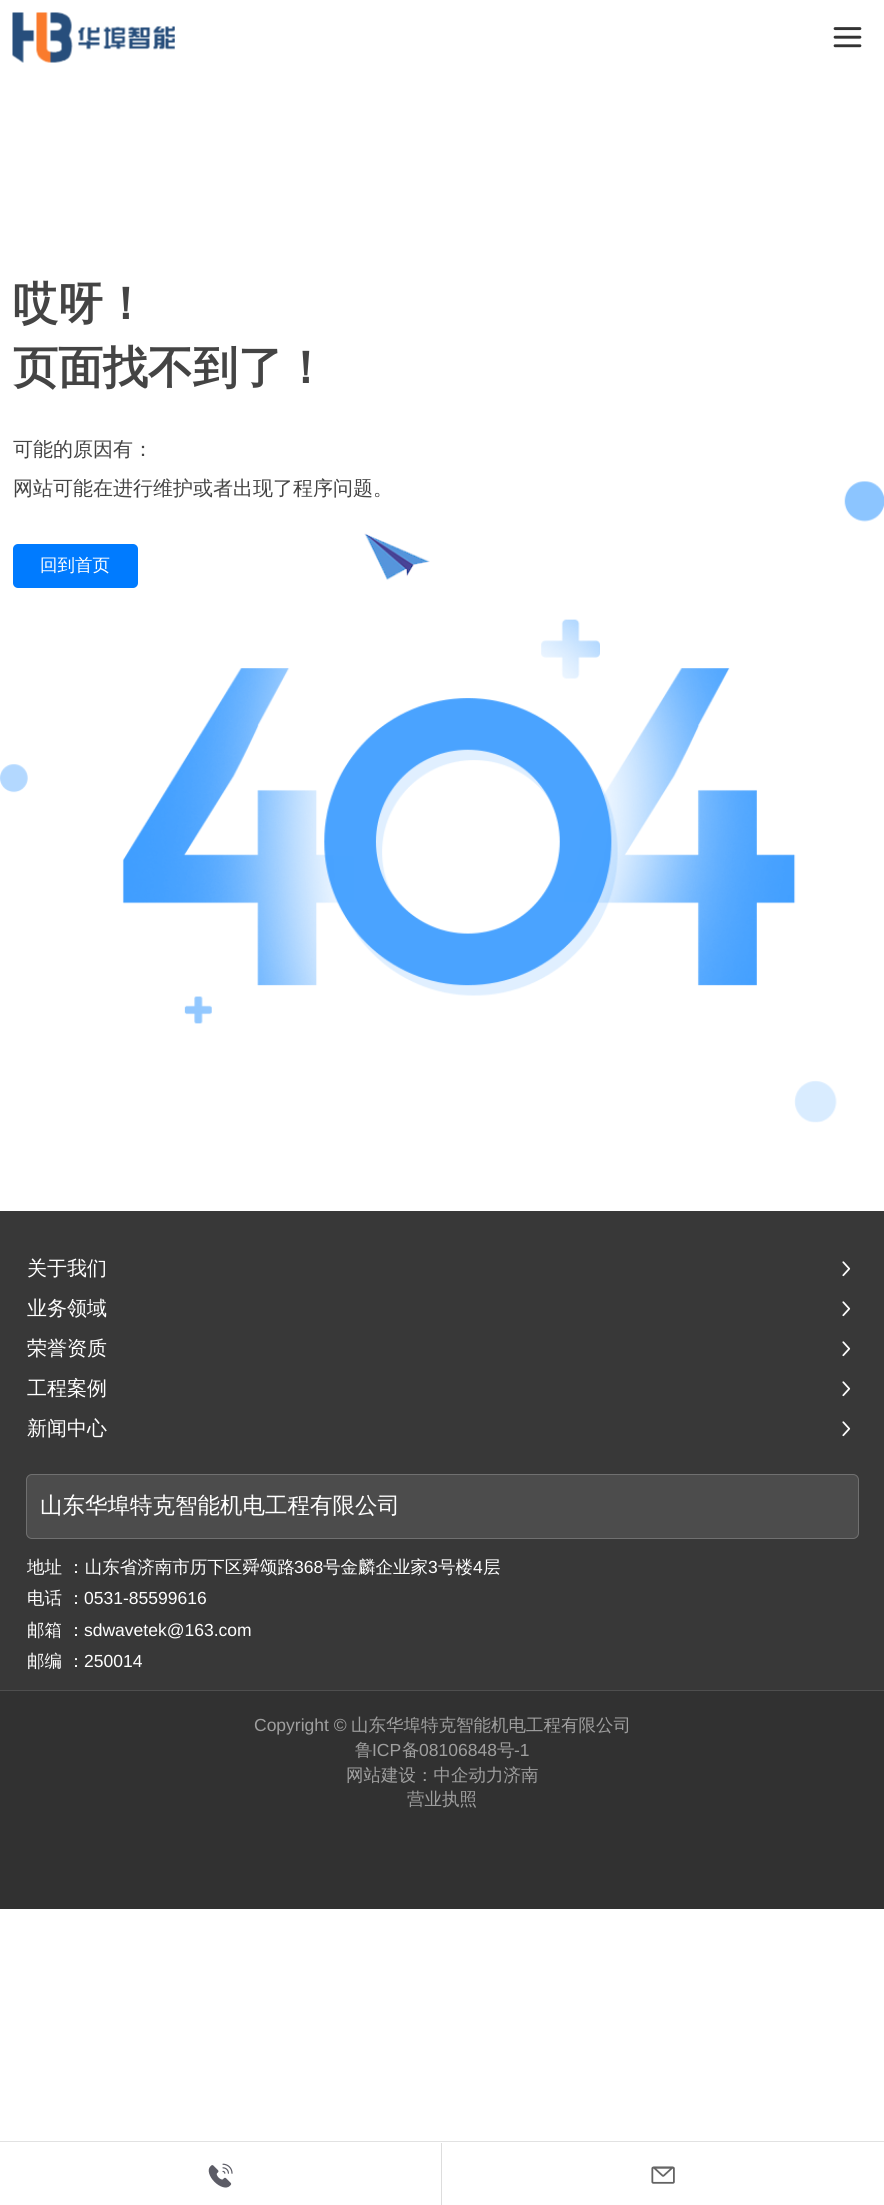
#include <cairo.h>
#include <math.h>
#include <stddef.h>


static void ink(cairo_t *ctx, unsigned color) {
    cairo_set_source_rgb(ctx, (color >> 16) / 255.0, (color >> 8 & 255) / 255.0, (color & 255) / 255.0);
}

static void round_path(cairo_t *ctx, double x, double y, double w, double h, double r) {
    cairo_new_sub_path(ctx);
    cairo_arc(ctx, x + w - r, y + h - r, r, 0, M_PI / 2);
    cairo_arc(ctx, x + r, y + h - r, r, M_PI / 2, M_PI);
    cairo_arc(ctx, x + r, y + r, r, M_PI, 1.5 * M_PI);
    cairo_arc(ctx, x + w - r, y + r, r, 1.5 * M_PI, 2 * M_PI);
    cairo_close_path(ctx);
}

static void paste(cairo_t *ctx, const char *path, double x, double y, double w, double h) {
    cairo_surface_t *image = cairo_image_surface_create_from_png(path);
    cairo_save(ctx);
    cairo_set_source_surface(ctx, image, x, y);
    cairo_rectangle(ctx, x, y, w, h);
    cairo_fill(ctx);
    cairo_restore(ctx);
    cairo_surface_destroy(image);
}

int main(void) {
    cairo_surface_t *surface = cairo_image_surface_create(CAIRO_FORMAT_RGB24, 884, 2205);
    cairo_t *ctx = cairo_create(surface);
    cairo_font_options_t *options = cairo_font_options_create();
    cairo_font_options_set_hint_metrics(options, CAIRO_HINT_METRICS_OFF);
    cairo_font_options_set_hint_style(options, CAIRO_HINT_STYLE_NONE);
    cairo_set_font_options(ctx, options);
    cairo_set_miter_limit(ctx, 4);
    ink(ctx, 0xFFFFFF);
    cairo_paint(ctx);
    paste(ctx, "media/1.png", 12, 12, 163, 51);
    paste(ctx, "media/2.png", 833, 27, 29, 21);
    cairo_select_font_face(ctx, "WenQuanYi Zen Hei", CAIRO_FONT_SLANT_NORMAL, CAIRO_FONT_WEIGHT_BOLD);
    cairo_set_font_size(ctx, 45);
    ink(ctx, 0x444444);
    cairo_move_to(ctx, 13, 319);
    cairo_show_text(ctx, "哎呀！");
    cairo_move_to(ctx, 13, 383);
    cairo_show_text(ctx, "页面找不到了！");
    cairo_select_font_face(ctx, "WenQuanYi Zen Hei Medium", CAIRO_FONT_SLANT_NORMAL, CAIRO_FONT_WEIGHT_NORMAL);
    cairo_set_font_size(ctx, 20);
    cairo_move_to(ctx, 13, 456);
    cairo_show_text(ctx, "可能的原因有：");
    cairo_move_to(ctx, 13, 495);
    cairo_show_text(ctx, "网站可能在进行维护或者出现了程序问题。");
    ink(ctx, 0x007BFF);
    round_path(ctx, 13, 544, 125, 44, 5);
    cairo_fill(ctx);
    paste(ctx, "media/3.png", 0, 481, 884, 642);
    cairo_set_font_size(ctx, 17.5);
    ink(ctx, 0xFFFFFF);
    cairo_move_to(ctx, 40, 571);
    cairo_show_text(ctx, "回到首页");
    ink(ctx, 0x383838);
    cairo_rectangle(ctx, 0, 1211, 884, 479);
    cairo_fill(ctx);
    cairo_set_font_size(ctx, 20);
    ink(ctx, 0xFFFFFF);
    cairo_move_to(ctx, 27, 1275);
    cairo_show_text(ctx, "关于我们");
    paste(ctx, "media/4.png", 842, 1261, 9, 16);
    cairo_move_to(ctx, 27, 1315);
    cairo_show_text(ctx, "业务领域");
    paste(ctx, "media/4.png", 842, 1301, 9, 16);
    cairo_move_to(ctx, 27, 1355);
    cairo_show_text(ctx, "荣誉资质");
    paste(ctx, "media/4.png", 842, 1341, 9, 16);
    cairo_move_to(ctx, 27, 1395);
    cairo_show_text(ctx, "工程案例");
    paste(ctx, "media/4.png", 842, 1381, 9, 16);
    cairo_move_to(ctx, 27, 1435);
    cairo_show_text(ctx, "新闻中心");
    paste(ctx, "media/4.png", 842, 1421, 9, 16);
    ink(ctx, 0xE2E2E2);
    cairo_rectangle(ctx, 0, 2141, 884, 1);
    cairo_fill(ctx);
    ink(ctx, 0xDDDDDD);
    cairo_rectangle(ctx, 441, 2143, 1, 62);
    cairo_fill(ctx);
    paste(ctx, "media/5.png", 208, 2163, 25, 25);
    paste(ctx, "media/6.png", 651, 2166, 24, 18);
    ink(ctx, 0x4C4C4C);
    round_path(ctx, 26, 1474, 833, 65, 6);
    cairo_fill(ctx);
    round_path(ctx, 26.5, 1474.5, 832, 64, 5.5);
    cairo_set_source_rgba(ctx, 1, 1, 1, 0.2);
    cairo_set_line_width(ctx, 1);
    cairo_stroke(ctx);
    cairo_set_font_size(ctx, 22.5);
    ink(ctx, 0xFFFFFF);
    cairo_move_to(ctx, 40, 1513);
    cairo_show_text(ctx, "山东华埠特克智能机电工程有限公司");
    cairo_set_font_size(ctx, 17.5);
    cairo_move_to(ctx, 27, 1573);
    cairo_show_text(ctx, "地址 ：山东省济南市历下区舜颂路");
    cairo_select_font_face(ctx, "Liberation Sans", CAIRO_FONT_SLANT_NORMAL, CAIRO_FONT_WEIGHT_NORMAL);
    cairo_move_to(ctx, 294, 1573);
    cairo_show_text(ctx, "368");
    cairo_select_font_face(ctx, "WenQuanYi Zen Hei Medium", CAIRO_FONT_SLANT_NORMAL, CAIRO_FONT_WEIGHT_NORMAL);
    cairo_move_to(ctx, 323, 1573);
    cairo_show_text(ctx, "号金麟企业家");
    cairo_select_font_face(ctx, "Liberation Sans", CAIRO_FONT_SLANT_NORMAL, CAIRO_FONT_WEIGHT_NORMAL);
    cairo_move_to(ctx, 428, 1573);
    cairo_show_text(ctx, "3");
    cairo_select_font_face(ctx, "WenQuanYi Zen Hei Medium", CAIRO_FONT_SLANT_NORMAL, CAIRO_FONT_WEIGHT_NORMAL);
    cairo_move_to(ctx, 438, 1573);
    cairo_show_text(ctx, "号楼");
    cairo_select_font_face(ctx, "Liberation Sans", CAIRO_FONT_SLANT_NORMAL, CAIRO_FONT_WEIGHT_NORMAL);
    cairo_move_to(ctx, 473, 1573);
    cairo_show_text(ctx, "4");
    cairo_select_font_face(ctx, "WenQuanYi Zen Hei Medium", CAIRO_FONT_SLANT_NORMAL, CAIRO_FONT_WEIGHT_NORMAL);
    cairo_move_to(ctx, 483, 1573);
    cairo_show_text(ctx, "层");
    cairo_move_to(ctx, 27, 1604);
    cairo_show_text(ctx, "电话 ：");
    cairo_select_font_face(ctx, "Liberation Sans", CAIRO_FONT_SLANT_NORMAL, CAIRO_FONT_WEIGHT_NORMAL);
    cairo_move_to(ctx, 84, 1604);
    cairo_show_text(ctx, "0531-85599616");
    cairo_select_font_face(ctx, "WenQuanYi Zen Hei Medium", CAIRO_FONT_SLANT_NORMAL, CAIRO_FONT_WEIGHT_NORMAL);
    cairo_move_to(ctx, 27, 1636);
    cairo_show_text(ctx, "邮箱 ：");
    cairo_select_font_face(ctx, "Liberation Sans", CAIRO_FONT_SLANT_NORMAL, CAIRO_FONT_WEIGHT_NORMAL);
    cairo_move_to(ctx, 84, 1636);
    cairo_show_text(ctx, "sdwavetek@163.com");
    cairo_select_font_face(ctx, "WenQuanYi Zen Hei Medium", CAIRO_FONT_SLANT_NORMAL, CAIRO_FONT_WEIGHT_NORMAL);
    cairo_move_to(ctx, 27, 1667);
    cairo_show_text(ctx, "邮编 ：");
    cairo_select_font_face(ctx, "Liberation Sans", CAIRO_FONT_SLANT_NORMAL, CAIRO_FONT_WEIGHT_NORMAL);
    cairo_move_to(ctx, 84, 1667);
    cairo_show_text(ctx, "250014");
    ink(ctx, 0x313131);
    cairo_rectangle(ctx, 0, 1691, 884, 218);
    cairo_fill(ctx);
    ink(ctx, 0x4E4E4E);
    cairo_rectangle(ctx, 0, 1690, 884, 1);
    cairo_fill(ctx);
    ink(ctx, 0x9F9F9F);
    cairo_move_to(ctx, 254, 1731);
    cairo_show_text(ctx, "Copyright ©");
    cairo_select_font_face(ctx, "WenQuanYi Zen Hei Medium", CAIRO_FONT_SLANT_NORMAL, CAIRO_FONT_WEIGHT_NORMAL);
    cairo_move_to(ctx, 351, 1731);
    cairo_show_text(ctx, "山东华埠特克智能机电工程有限公司");
    cairo_move_to(ctx, 355, 1756);
    cairo_show_text(ctx, "鲁");
    cairo_select_font_face(ctx, "Liberation Sans", CAIRO_FONT_SLANT_NORMAL, CAIRO_FONT_WEIGHT_NORMAL);
    cairo_move_to(ctx, 372, 1756);
    cairo_show_text(ctx, "ICP");
    cairo_select_font_face(ctx, "WenQuanYi Zen Hei Medium", CAIRO_FONT_SLANT_NORMAL, CAIRO_FONT_WEIGHT_NORMAL);
    cairo_move_to(ctx, 402, 1756);
    cairo_show_text(ctx, "备");
    cairo_select_font_face(ctx, "Liberation Sans", CAIRO_FONT_SLANT_NORMAL, CAIRO_FONT_WEIGHT_NORMAL);
    cairo_move_to(ctx, 419, 1756);
    cairo_show_text(ctx, "08106848");
    cairo_select_font_face(ctx, "WenQuanYi Zen Hei Medium", CAIRO_FONT_SLANT_NORMAL, CAIRO_FONT_WEIGHT_NORMAL);
    cairo_move_to(ctx, 497, 1756);
    cairo_show_text(ctx, "号");
    cairo_select_font_face(ctx, "Liberation Sans", CAIRO_FONT_SLANT_NORMAL, CAIRO_FONT_WEIGHT_NORMAL);
    cairo_move_to(ctx, 514, 1756);
    cairo_show_text(ctx, "-1");
    cairo_select_font_face(ctx, "WenQuanYi Zen Hei Medium", CAIRO_FONT_SLANT_NORMAL, CAIRO_FONT_WEIGHT_NORMAL);
    cairo_move_to(ctx, 346, 1781);
    cairo_show_text(ctx, "网站建设：中企动力济南");
    cairo_move_to(ctx, 407, 1805);
    cairo_show_text(ctx, "营业执照");
    cairo_surface_write_to_png(surface, "image.png");
    cairo_font_options_destroy(options);
    cairo_destroy(ctx);
    cairo_surface_destroy(surface);
    return 0;
}
